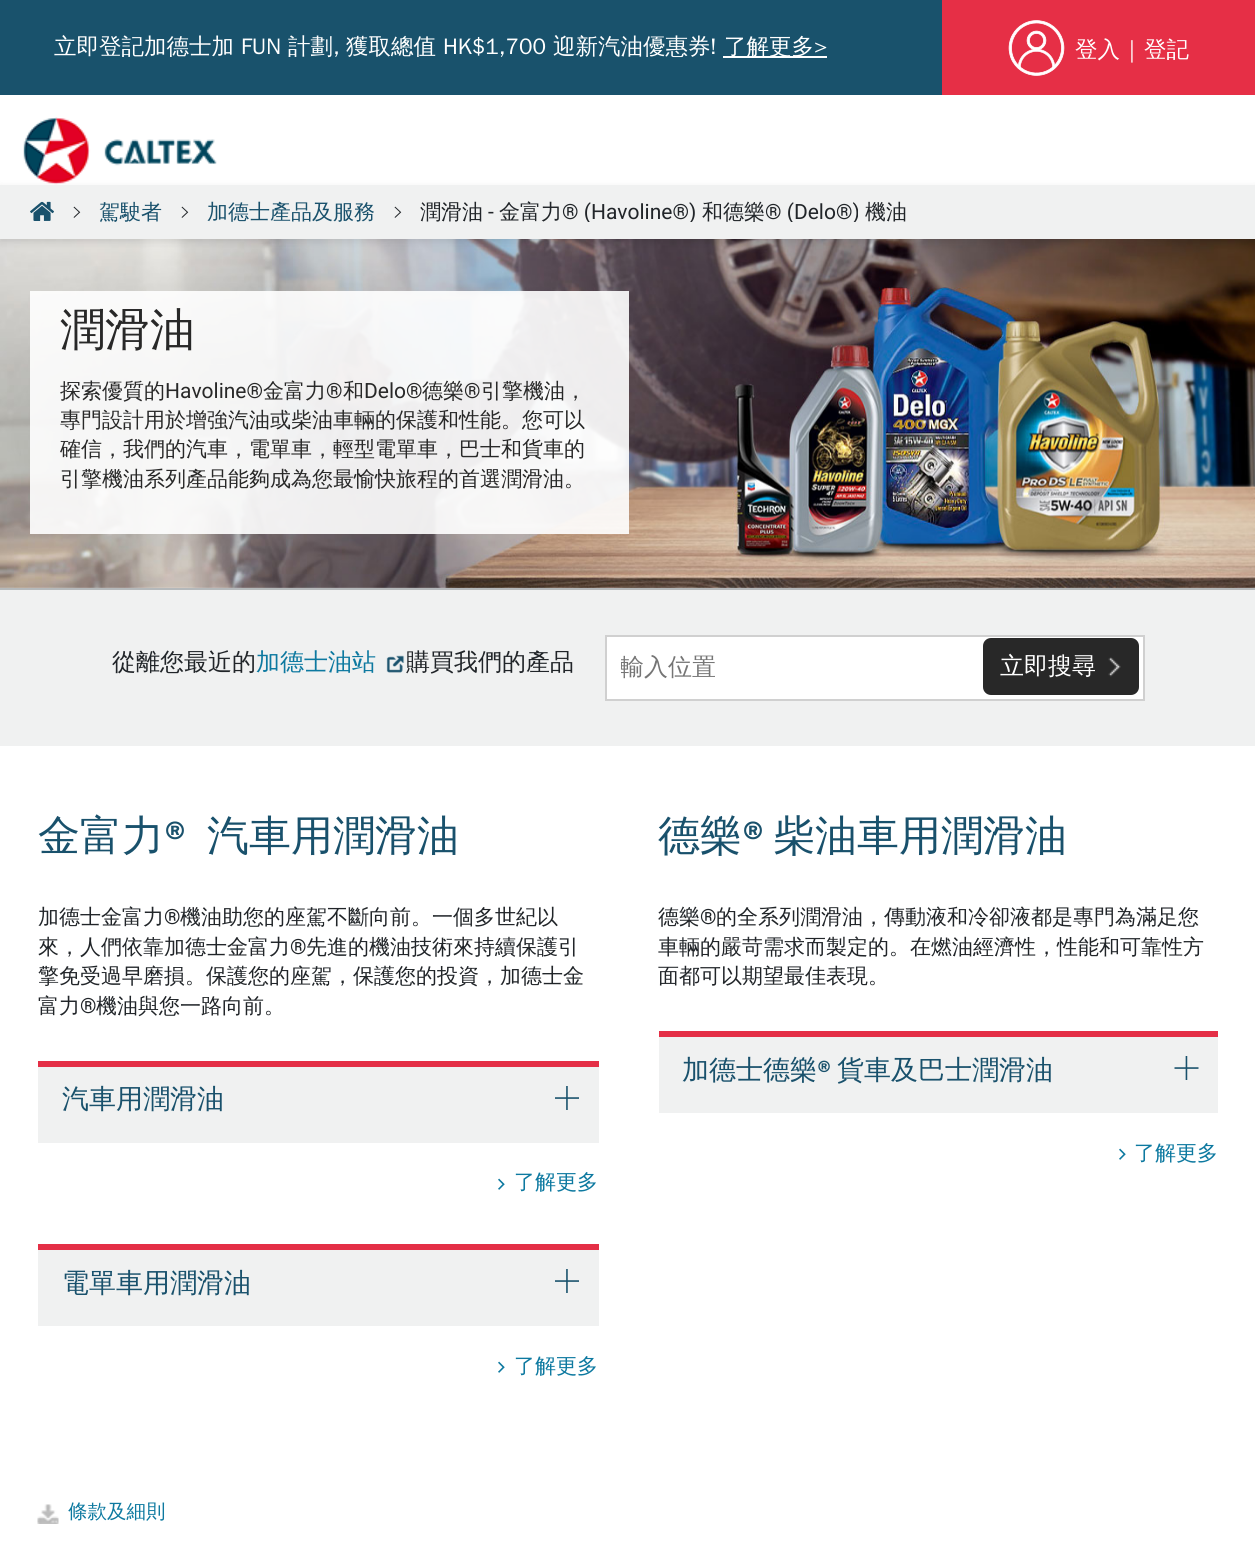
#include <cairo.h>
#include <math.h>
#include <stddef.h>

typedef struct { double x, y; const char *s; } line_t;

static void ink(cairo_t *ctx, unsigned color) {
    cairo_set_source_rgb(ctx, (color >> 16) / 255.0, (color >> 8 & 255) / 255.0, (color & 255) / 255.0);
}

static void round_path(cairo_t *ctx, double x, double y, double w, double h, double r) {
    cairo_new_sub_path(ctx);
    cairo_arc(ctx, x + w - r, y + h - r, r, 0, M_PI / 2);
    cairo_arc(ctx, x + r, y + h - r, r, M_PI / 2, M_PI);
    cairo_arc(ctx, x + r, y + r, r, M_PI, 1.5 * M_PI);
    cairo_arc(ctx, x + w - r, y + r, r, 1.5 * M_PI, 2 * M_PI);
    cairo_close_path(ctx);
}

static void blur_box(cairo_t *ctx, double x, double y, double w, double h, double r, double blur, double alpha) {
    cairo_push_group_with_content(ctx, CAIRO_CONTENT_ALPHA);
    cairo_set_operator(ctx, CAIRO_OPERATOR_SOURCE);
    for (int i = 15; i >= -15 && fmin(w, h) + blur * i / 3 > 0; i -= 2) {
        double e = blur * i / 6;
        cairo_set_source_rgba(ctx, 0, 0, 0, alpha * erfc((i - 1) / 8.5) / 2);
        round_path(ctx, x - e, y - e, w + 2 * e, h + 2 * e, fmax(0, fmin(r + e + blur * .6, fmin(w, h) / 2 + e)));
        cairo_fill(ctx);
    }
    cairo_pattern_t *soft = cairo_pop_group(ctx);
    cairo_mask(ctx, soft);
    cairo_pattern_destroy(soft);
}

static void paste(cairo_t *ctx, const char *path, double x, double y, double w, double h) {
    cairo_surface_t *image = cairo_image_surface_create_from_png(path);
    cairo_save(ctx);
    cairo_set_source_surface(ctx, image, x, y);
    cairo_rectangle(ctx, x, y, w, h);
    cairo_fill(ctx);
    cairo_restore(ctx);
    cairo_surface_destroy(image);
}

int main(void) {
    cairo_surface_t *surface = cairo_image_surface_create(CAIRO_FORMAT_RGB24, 1255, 1565);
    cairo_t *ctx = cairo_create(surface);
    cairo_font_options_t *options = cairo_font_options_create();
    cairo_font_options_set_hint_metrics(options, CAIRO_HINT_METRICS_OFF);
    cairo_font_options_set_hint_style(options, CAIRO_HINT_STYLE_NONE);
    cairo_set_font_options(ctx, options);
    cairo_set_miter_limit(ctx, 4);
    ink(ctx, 0xFFFFFF);
    cairo_paint(ctx);
    ink(ctx, 0x19526C);
    cairo_rectangle(ctx, 0, 0, 942, 95);
    cairo_fill(ctx);
    cairo_select_font_face(ctx, "WenQuanYi Zen Hei Medium", CAIRO_FONT_SLANT_NORMAL, CAIRO_FONT_WEIGHT_NORMAL);
    cairo_set_font_size(ctx, 22.5);
    ink(ctx, 0xFFFFFF);
    cairo_move_to(ctx, 54, 54);
    cairo_show_text(ctx, "立即登記加德士加");
    cairo_select_font_face(ctx, "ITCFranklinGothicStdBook", CAIRO_FONT_SLANT_NORMAL, CAIRO_FONT_WEIGHT_NORMAL);
    cairo_move_to(ctx, 241, 54);
    cairo_show_text(ctx, "FUN");
    cairo_select_font_face(ctx, "WenQuanYi Zen Hei Medium", CAIRO_FONT_SLANT_NORMAL, CAIRO_FONT_WEIGHT_NORMAL);
    cairo_move_to(ctx, 288, 54);
    cairo_show_text(ctx, "計劃");
    cairo_move_to(ctx, 346, 54);
    cairo_show_text(ctx, "獲取總值");
    cairo_select_font_face(ctx, "ITCFranklinGothicStdBook", CAIRO_FONT_SLANT_NORMAL, CAIRO_FONT_WEIGHT_NORMAL);
    cairo_move_to(ctx, 443, 54);
    cairo_show_text(ctx, "HK$1,700");
    cairo_select_font_face(ctx, "WenQuanYi Zen Hei Medium", CAIRO_FONT_SLANT_NORMAL, CAIRO_FONT_WEIGHT_NORMAL);
    cairo_move_to(ctx, 553, 54);
    cairo_show_text(ctx, "迎新汽油優惠券");
    cairo_select_font_face(ctx, "ITCFranklinGothicStdBook", CAIRO_FONT_SLANT_NORMAL, CAIRO_FONT_WEIGHT_NORMAL);
    cairo_move_to(ctx, 710, 54);
    cairo_show_text(ctx, "!");
    cairo_rectangle(ctx, 723, 56, 104, 2);
    cairo_fill(ctx);
    cairo_select_font_face(ctx, "WenQuanYi Zen Hei Medium", CAIRO_FONT_SLANT_NORMAL, CAIRO_FONT_WEIGHT_NORMAL);
    cairo_move_to(ctx, 724, 54);
    cairo_show_text(ctx, "了解更多");
    cairo_select_font_face(ctx, "ITCFranklinGothicStdBook", CAIRO_FONT_SLANT_NORMAL, CAIRO_FONT_WEIGHT_NORMAL);
    cairo_move_to(ctx, 814, 54);
    cairo_show_text(ctx, ">");
    cairo_move_to(ctx, 333, 54);
    cairo_show_text(ctx, ",");
    ink(ctx, 0xE62F46);
    cairo_rectangle(ctx, 942, 0, 313, 95);
    cairo_fill(ctx);
    paste(ctx, "media/1.png", 1008, 20, 57, 56);
    cairo_select_font_face(ctx, "WenQuanYi Zen Hei Medium", CAIRO_FONT_SLANT_NORMAL, CAIRO_FONT_WEIGHT_NORMAL);
    ink(ctx, 0xFFFFFF);
    cairo_move_to(ctx, 1075, 57);
    cairo_show_text(ctx, "登入");
    cairo_select_font_face(ctx, "ITCFranklinGothicStdBook", CAIRO_FONT_SLANT_NORMAL, CAIRO_FONT_WEIGHT_NORMAL);
    cairo_move_to(ctx, 1129, 57);
    cairo_show_text(ctx, "|");
    cairo_select_font_face(ctx, "WenQuanYi Zen Hei Medium", CAIRO_FONT_SLANT_NORMAL, CAIRO_FONT_WEIGHT_NORMAL);
    cairo_move_to(ctx, 1144, 57);
    cairo_show_text(ctx, "登記");
    paste(ctx, "media/5.png", 0, 239, 1255, 349);
    ink(ctx, 0x000000);
    blur_box(ctx, 0, 188, 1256, 54, 0, 4.5, 0.1);
    paste(ctx, "media/2.png", 23, 117, 194, 68);
    ink(ctx, 0xF0F1F1);
    cairo_rectangle(ctx, 0, 185, 1255, 54);
    cairo_fill(ctx);
    paste(ctx, "media/3.png", 30, 201, 24, 20);
    paste(ctx, "media/4.png", 73, 206, 8, 12);
    cairo_set_font_size(ctx, 21);
    ink(ctx, 0x19516C);
    cairo_move_to(ctx, 99, 219);
    cairo_show_text(ctx, "駕駛者");
    paste(ctx, "media/4.png", 181, 206, 8, 12);
    cairo_move_to(ctx, 207, 219);
    cairo_show_text(ctx, "加德士產品及服務");
    paste(ctx, "media/4.png", 394, 206, 8, 12);
    ink(ctx, 0x212529);
    cairo_move_to(ctx, 420, 219);
    cairo_show_text(ctx, "潤滑油");
    cairo_select_font_face(ctx, "Roboto", CAIRO_FONT_SLANT_NORMAL, CAIRO_FONT_WEIGHT_NORMAL);
    cairo_move_to(ctx, 488, 219);
    cairo_show_text(ctx, "-");
    cairo_select_font_face(ctx, "WenQuanYi Zen Hei Medium", CAIRO_FONT_SLANT_NORMAL, CAIRO_FONT_WEIGHT_NORMAL);
    cairo_move_to(ctx, 499, 219);
    cairo_show_text(ctx, "金富力");
    cairo_save(ctx);
    cairo_rectangle(ctx, 30, 201, 1196, 21);
    cairo_clip(ctx);
    cairo_select_font_face(ctx, "Roboto", CAIRO_FONT_SLANT_NORMAL, CAIRO_FONT_WEIGHT_NORMAL);
    cairo_move_to(ctx, 562, 219);
    cairo_show_text(ctx, "® (Havoline®)");
    cairo_restore(ctx);
    cairo_move_to(ctx, 702, 219);
    cairo_show_text(ctx, "和德樂");
    cairo_save(ctx);
    cairo_rectangle(ctx, 30, 201, 1196, 21);
    cairo_clip(ctx);
    cairo_select_font_face(ctx, "Roboto", CAIRO_FONT_SLANT_NORMAL, CAIRO_FONT_WEIGHT_NORMAL);
    cairo_move_to(ctx, 765, 219);
    cairo_show_text(ctx, "® (Delo®)");
    cairo_restore(ctx);
    cairo_move_to(ctx, 865, 219);
    cairo_show_text(ctx, "機油");
    cairo_set_source_rgba(ctx, 1, 1, 1, 0.9);
    cairo_rectangle(ctx, 30, 291, 599, 243);
    cairo_fill(ctx);
    cairo_set_font_size(ctx, 45);
    ink(ctx, 0x282828);
    cairo_move_to(ctx, 60, 345);
    cairo_show_text(ctx, "潤滑油");
    cairo_set_font_size(ctx, 21);
    cairo_move_to(ctx, 60, 398);
    cairo_show_text(ctx, "探索優質的");
    cairo_select_font_face(ctx, "Roboto", CAIRO_FONT_SLANT_NORMAL, CAIRO_FONT_WEIGHT_NORMAL);
    cairo_move_to(ctx, 165, 398);
    cairo_show_text(ctx, "Havoline®");
    cairo_select_font_face(ctx, "WenQuanYi Zen Hei Medium", CAIRO_FONT_SLANT_NORMAL, CAIRO_FONT_WEIGHT_NORMAL);
    cairo_move_to(ctx, 263, 398);
    cairo_show_text(ctx, "金富力");
    cairo_select_font_face(ctx, "Roboto", CAIRO_FONT_SLANT_NORMAL, CAIRO_FONT_WEIGHT_NORMAL);
    cairo_move_to(ctx, 326, 398);
    cairo_show_text(ctx, "®");
    cairo_select_font_face(ctx, "WenQuanYi Zen Hei Medium", CAIRO_FONT_SLANT_NORMAL, CAIRO_FONT_WEIGHT_NORMAL);
    cairo_move_to(ctx, 343, 398);
    cairo_show_text(ctx, "和");
    cairo_select_font_face(ctx, "Roboto", CAIRO_FONT_SLANT_NORMAL, CAIRO_FONT_WEIGHT_NORMAL);
    cairo_move_to(ctx, 364, 398);
    cairo_show_text(ctx, "Delo®");
    cairo_select_font_face(ctx, "WenQuanYi Zen Hei Medium", CAIRO_FONT_SLANT_NORMAL, CAIRO_FONT_WEIGHT_NORMAL);
    cairo_move_to(ctx, 422, 398);
    cairo_show_text(ctx, "德樂");
    cairo_select_font_face(ctx, "Roboto", CAIRO_FONT_SLANT_NORMAL, CAIRO_FONT_WEIGHT_NORMAL);
    cairo_move_to(ctx, 464, 398);
    cairo_show_text(ctx, "®");
    cairo_select_font_face(ctx, "WenQuanYi Zen Hei Medium", CAIRO_FONT_SLANT_NORMAL, CAIRO_FONT_WEIGHT_NORMAL);
    {
        static const line_t items[] = {
            {481, 398, "引擎機油，"},
            {60, 427, "專門設計用於增強汽油或柴油車輛的保護和性能。您可以"},
            {60, 456, "確信，我們的汽車，電單車，輕型電單車，巴士和貨車的"},
            {60, 486, "引擎機油系列產品能夠成為您最愉快旅程的首選潤滑油。"},
        };
        for (size_t i = 0; i < sizeof items / sizeof *items; i++) {
            cairo_move_to(ctx, items[i].x, items[i].y);
            cairo_show_text(ctx, items[i].s);
        }
    }
    ink(ctx, 0xF0F1F1);
    cairo_rectangle(ctx, 0, 590, 1255, 156);
    cairo_fill(ctx);
    ink(ctx, 0xB5B9BB);
    cairo_rectangle(ctx, 0, 588, 1255, 2);
    cairo_fill(ctx);
    cairo_set_font_size(ctx, 24);
    ink(ctx, 0x212529);
    cairo_move_to(ctx, 112, 670);
    cairo_show_text(ctx, "從離您最近的");
    ink(ctx, 0x0D79A0);
    cairo_move_to(ctx, 256, 670);
    cairo_show_text(ctx, "加德士油站");
    paste(ctx, "media/6.png", 386, 655, 19, 18);
    ink(ctx, 0x212529);
    cairo_move_to(ctx, 406, 670);
    cairo_show_text(ctx, "購買我們的產品");
    ink(ctx, 0xFFFFFF);
    cairo_rectangle(ctx, 606, 636, 538, 64);
    cairo_fill_preserve(ctx);
    ink(ctx, 0xD0D0D0);
    cairo_stroke(ctx);
    cairo_save(ctx);
    cairo_rectangle(ctx, 621, 653, 348, 31);
    cairo_clip(ctx);
    ink(ctx, 0x757575);
    cairo_move_to(ctx, 620, 675);
    cairo_show_text(ctx, "輸入位置");
    cairo_restore(ctx);
    ink(ctx, 0x282828);
    round_path(ctx, 983, 638, 156, 57, 8);
    cairo_fill(ctx);
    ink(ctx, 0xFFFFFF);
    cairo_move_to(ctx, 1000, 674);
    cairo_show_text(ctx, "立即搜尋");
    paste(ctx, "media/7.png", 1108, 657, 13, 20);
    cairo_set_font_size(ctx, 42);
    ink(ctx, 0x19516C);
    cairo_move_to(ctx, 38, 850);
    cairo_show_text(ctx, "金富力");
    cairo_select_font_face(ctx, "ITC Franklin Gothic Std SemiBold", CAIRO_FONT_SLANT_NORMAL, CAIRO_FONT_WEIGHT_NORMAL);
    cairo_move_to(ctx, 164, 850);
    cairo_show_text(ctx, "®");
    cairo_select_font_face(ctx, "WenQuanYi Zen Hei Medium", CAIRO_FONT_SLANT_NORMAL, CAIRO_FONT_WEIGHT_NORMAL);
    cairo_move_to(ctx, 207, 850);
    cairo_show_text(ctx, "汽車用潤滑油");
    cairo_set_font_size(ctx, 21);
    ink(ctx, 0x212529);
    cairo_move_to(ctx, 38, 924);
    cairo_show_text(ctx, "加德士金富力");
    cairo_select_font_face(ctx, "Roboto", CAIRO_FONT_SLANT_NORMAL, CAIRO_FONT_WEIGHT_NORMAL);
    cairo_move_to(ctx, 164, 924);
    cairo_show_text(ctx, "®");
    cairo_select_font_face(ctx, "WenQuanYi Zen Hei Medium", CAIRO_FONT_SLANT_NORMAL, CAIRO_FONT_WEIGHT_NORMAL);
    cairo_move_to(ctx, 180, 924);
    cairo_show_text(ctx, "機油助您的座駕不斷向前。一個多世紀以");
    cairo_move_to(ctx, 38, 954);
    cairo_show_text(ctx, "來，人們依靠加德士金富力");
    cairo_select_font_face(ctx, "Roboto", CAIRO_FONT_SLANT_NORMAL, CAIRO_FONT_WEIGHT_NORMAL);
    cairo_move_to(ctx, 290, 954);
    cairo_show_text(ctx, "®");
    cairo_select_font_face(ctx, "WenQuanYi Zen Hei Medium", CAIRO_FONT_SLANT_NORMAL, CAIRO_FONT_WEIGHT_NORMAL);
    {
        static const line_t items[] = {
            {306, 954, "先進的機油技術來持續保護引"},
            {38, 983, "擎免受過早磨損。保護您的座駕，保護您的投資，加德士金"},
            {38, 1013, "富力"},
        };
        for (size_t i = 0; i < sizeof items / sizeof *items; i++) {
            cairo_move_to(ctx, items[i].x, items[i].y);
            cairo_show_text(ctx, items[i].s);
        }
    }
    cairo_select_font_face(ctx, "Roboto", CAIRO_FONT_SLANT_NORMAL, CAIRO_FONT_WEIGHT_NORMAL);
    cairo_move_to(ctx, 80, 1013);
    cairo_show_text(ctx, "®");
    cairo_select_font_face(ctx, "WenQuanYi Zen Hei Medium", CAIRO_FONT_SLANT_NORMAL, CAIRO_FONT_WEIGHT_NORMAL);
    cairo_move_to(ctx, 96, 1013);
    cairo_show_text(ctx, "機油與您一路向前。");
    ink(ctx, 0xF0F1F1);
    cairo_rectangle(ctx, 38, 1067, 561, 76);
    cairo_fill(ctx);
    ink(ctx, 0xE42F46);
    cairo_rectangle(ctx, 38, 1061, 561, 6);
    cairo_fill(ctx);
    cairo_set_font_size(ctx, 27);
    ink(ctx, 0x19516C);
    cairo_move_to(ctx, 62, 1108);
    cairo_show_text(ctx, "汽車用潤滑油");
    paste(ctx, "media/8.png", 555, 1086, 24, 24);
    paste(ctx, "media/9.png", 498, 1178, 7, 12);
    cairo_set_font_size(ctx, 21);
    ink(ctx, 0x0D79A0);
    cairo_move_to(ctx, 514, 1189);
    cairo_show_text(ctx, "了解更多");
    ink(ctx, 0xF0F1F1);
    cairo_rectangle(ctx, 38, 1250, 561, 76);
    cairo_fill(ctx);
    ink(ctx, 0xE42F46);
    cairo_rectangle(ctx, 38, 1244, 561, 6);
    cairo_fill(ctx);
    cairo_set_font_size(ctx, 27);
    ink(ctx, 0x19516C);
    cairo_move_to(ctx, 62, 1292);
    cairo_show_text(ctx, "電單車用潤滑油");
    paste(ctx, "media/8.png", 555, 1269, 24, 24);
    paste(ctx, "media/9.png", 498, 1361, 7, 12);
    cairo_set_font_size(ctx, 21);
    ink(ctx, 0x0D79A0);
    cairo_move_to(ctx, 514, 1373);
    cairo_show_text(ctx, "了解更多");
    paste(ctx, "media/10.png", 37, 1504, 22, 20);
    cairo_set_font_size(ctx, 19.5);
    cairo_move_to(ctx, 68, 1518);
    cairo_show_text(ctx, "條款及細則");
    cairo_set_font_size(ctx, 42);
    ink(ctx, 0x19516C);
    cairo_move_to(ctx, 658, 850);
    cairo_show_text(ctx, "德樂");
    cairo_select_font_face(ctx, "ITC Franklin Gothic Std SemiBold", CAIRO_FONT_SLANT_NORMAL, CAIRO_FONT_WEIGHT_NORMAL);
    cairo_move_to(ctx, 742, 850);
    cairo_show_text(ctx, "®");
    cairo_select_font_face(ctx, "WenQuanYi Zen Hei Medium", CAIRO_FONT_SLANT_NORMAL, CAIRO_FONT_WEIGHT_NORMAL);
    cairo_move_to(ctx, 773, 850);
    cairo_show_text(ctx, "柴油車用潤滑油");
    cairo_set_font_size(ctx, 21);
    ink(ctx, 0x212529);
    cairo_move_to(ctx, 658, 924);
    cairo_show_text(ctx, "德樂");
    cairo_select_font_face(ctx, "Roboto", CAIRO_FONT_SLANT_NORMAL, CAIRO_FONT_WEIGHT_NORMAL);
    cairo_move_to(ctx, 700, 924);
    cairo_show_text(ctx, "®");
    cairo_select_font_face(ctx, "WenQuanYi Zen Hei Medium", CAIRO_FONT_SLANT_NORMAL, CAIRO_FONT_WEIGHT_NORMAL);
    {
        static const line_t items[] = {
            {716, 924, "的全系列潤滑油，傳動液和冷卻液都是專門為滿足您"},
            {658, 954, "車輛的嚴苛需求而製定的。在燃油經濟性，性能和可靠性方"},
            {658, 983, "面都可以期望最佳表現。"},
        };
        for (size_t i = 0; i < sizeof items / sizeof *items; i++) {
            cairo_move_to(ctx, items[i].x, items[i].y);
            cairo_show_text(ctx, items[i].s);
        }
    }
    ink(ctx, 0xF0F1F1);
    cairo_rectangle(ctx, 659, 1037, 559, 76);
    cairo_fill(ctx);
    ink(ctx, 0xE42F46);
    cairo_rectangle(ctx, 659, 1031, 559, 6);
    cairo_fill(ctx);
    cairo_set_font_size(ctx, 27);
    ink(ctx, 0x19516C);
    cairo_move_to(ctx, 682, 1079);
    cairo_show_text(ctx, "加德士德樂");
    cairo_select_font_face(ctx, "ITC Franklin Gothic Std SemiBold", CAIRO_FONT_SLANT_NORMAL, CAIRO_FONT_WEIGHT_NORMAL);
    cairo_move_to(ctx, 817, 1079);
    cairo_show_text(ctx, "®");
    cairo_select_font_face(ctx, "WenQuanYi Zen Hei Medium", CAIRO_FONT_SLANT_NORMAL, CAIRO_FONT_WEIGHT_NORMAL);
    cairo_move_to(ctx, 837, 1079);
    cairo_show_text(ctx, "貨車及巴士潤滑油");
    paste(ctx, "media/11.png", 1174, 1056, 25, 24);
    paste(ctx, "media/9.png", 1119, 1148, 7, 12);
    cairo_set_font_size(ctx, 21);
    ink(ctx, 0x0D79A0);
    cairo_move_to(ctx, 1134, 1160);
    cairo_show_text(ctx, "了解更多");
    cairo_surface_write_to_png(surface, "image.png");
    cairo_font_options_destroy(options);
    cairo_destroy(ctx);
    cairo_surface_destroy(surface);
    return 0;
}
